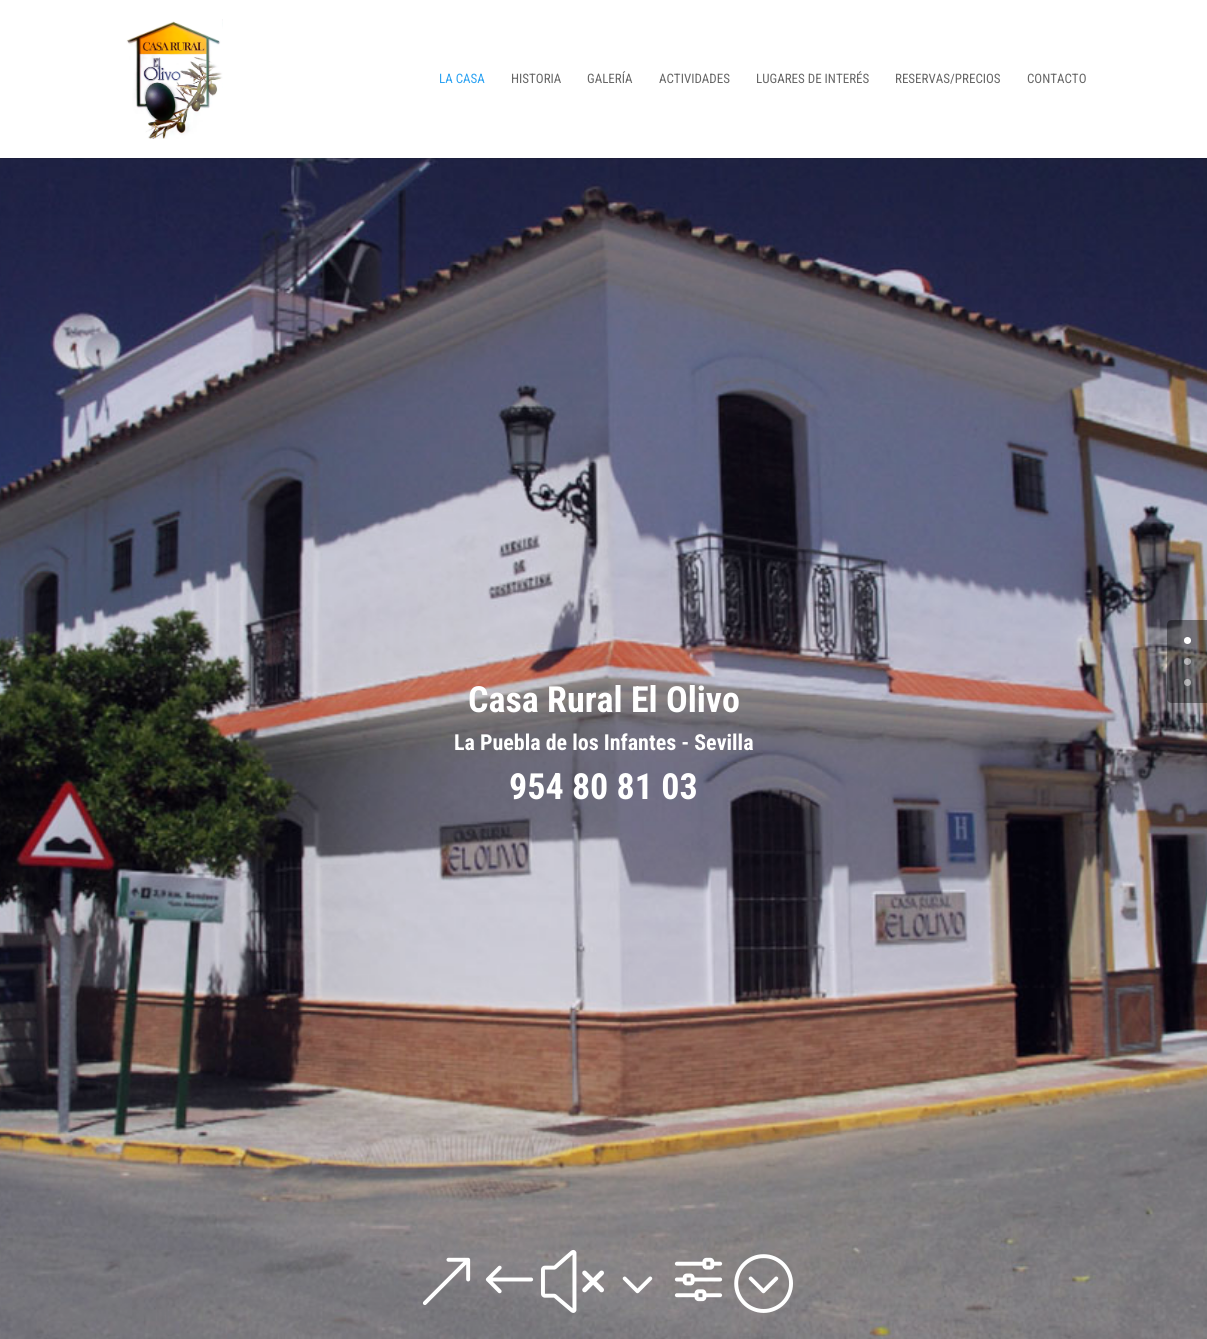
#include <cairo.h>
#include <math.h>
#include <stddef.h>

typedef struct { double x, y; const char *s; } line_t;

static void ink(cairo_t *ctx, unsigned color) {
    cairo_set_source_rgb(ctx, (color >> 16) / 255.0, (color >> 8 & 255) / 255.0, (color & 255) / 255.0);
}

static void paste(cairo_t *ctx, const char *path, double x, double y, double w, double h) {
    cairo_surface_t *image = cairo_image_surface_create_from_png(path);
    cairo_save(ctx);
    cairo_set_source_surface(ctx, image, x, y);
    cairo_rectangle(ctx, x, y, w, h);
    cairo_fill(ctx);
    cairo_restore(ctx);
    cairo_surface_destroy(image);
}

int main(void) {
    cairo_surface_t *surface = cairo_image_surface_create(CAIRO_FORMAT_RGB24, 1207, 1339);
    cairo_t *ctx = cairo_create(surface);
    cairo_font_options_t *options = cairo_font_options_create();
    cairo_font_options_set_hint_metrics(options, CAIRO_HINT_METRICS_OFF);
    cairo_font_options_set_hint_style(options, CAIRO_HINT_STYLE_NONE);
    cairo_set_font_options(ctx, options);
    cairo_set_miter_limit(ctx, 4);
    ink(ctx, 0xFFFFFF);
    cairo_paint(ctx);
    paste(ctx, "media/2.png", 0, 158, 1207, 1181);
    cairo_set_source_rgba(ctx, 0, 0, 0, 0.1);
    cairo_rectangle(ctx, 0, 158, 1207, 1);
    cairo_fill(ctx);
    paste(ctx, "media/1.png", 126, 19, 97, 120);
    cairo_select_font_face(ctx, "Roboto Condensed", CAIRO_FONT_SLANT_NORMAL, CAIRO_FONT_WEIGHT_NORMAL);
    cairo_set_font_size(ctx, 13);
    ink(ctx, 0x2EA3F2);
    cairo_move_to(ctx, 439, 83);
    cairo_show_text(ctx, "LA CASA");
    ink(ctx, 0x666666);
    {
        static const line_t items[] = {
            {511, 83, "HISTORIA"},
            {587, 83, "GALERÍA"},
            {659, 83, "ACTIVIDADES"},
            {756, 83, "LUGARES DE INTERÉS"},
            {895, 83, "RESERVAS/PRECIOS"},
            {1027, 83, "CONTACTO"},
        };
        for (size_t i = 0; i < sizeof items / sizeof *items; i++) {
            cairo_move_to(ctx, items[i].x, items[i].y);
            cairo_show_text(ctx, items[i].s);
        }
    }
    cairo_set_source_rgba(ctx, 0, 0, 0, 0.4);
    cairo_new_path(ctx);
    cairo_move_to(ctx, 1172, 620);
    cairo_line_to(ctx, 1207, 620);
    cairo_line_to(ctx, 1207, 703);
    cairo_line_to(ctx, 1172, 703);
    cairo_curve_to(ctx, 1169, 703, 1167, 701, 1167, 698);
    cairo_line_to(ctx, 1167, 625);
    cairo_curve_to(ctx, 1167, 622, 1169, 620, 1172, 620);
    cairo_close_path(ctx);
    cairo_fill(ctx);
    ink(ctx, 0xFFFFFF);
    cairo_arc(ctx, 1187.5, 640.5, 3.5, 0, 2 * M_PI);
    cairo_fill(ctx);
    cairo_set_source_rgba(ctx, 1, 1, 1, 0.5);
    cairo_arc(ctx, 1187.5, 661.5, 3.5, 0, 2 * M_PI);
    cairo_fill(ctx);
    cairo_arc(ctx, 1187.5, 682.5, 3.5, 0, 2 * M_PI);
    cairo_fill(ctx);
    cairo_select_font_face(ctx, "Roboto Condensed", CAIRO_FONT_SLANT_NORMAL, CAIRO_FONT_WEIGHT_BOLD);
    cairo_set_font_size(ctx, 36);
    ink(ctx, 0xFFFFFF);
    cairo_move_to(ctx, 468, 712);
    cairo_show_text(ctx, "Casa Rural El Olivo");
    cairo_set_font_size(ctx, 22);
    cairo_move_to(ctx, 454, 750);
    cairo_show_text(ctx, "La Puebla de los Infantes - Sevilla");
    cairo_set_font_size(ctx, 36);
    cairo_move_to(ctx, 509, 799);
    cairo_show_text(ctx, "954 80 81 03");
    paste(ctx, "media/3.png", 422, 1249, 371, 64);
    cairo_surface_write_to_png(surface, "image.png");
    cairo_font_options_destroy(options);
    cairo_destroy(ctx);
    cairo_surface_destroy(surface);
    return 0;
}
